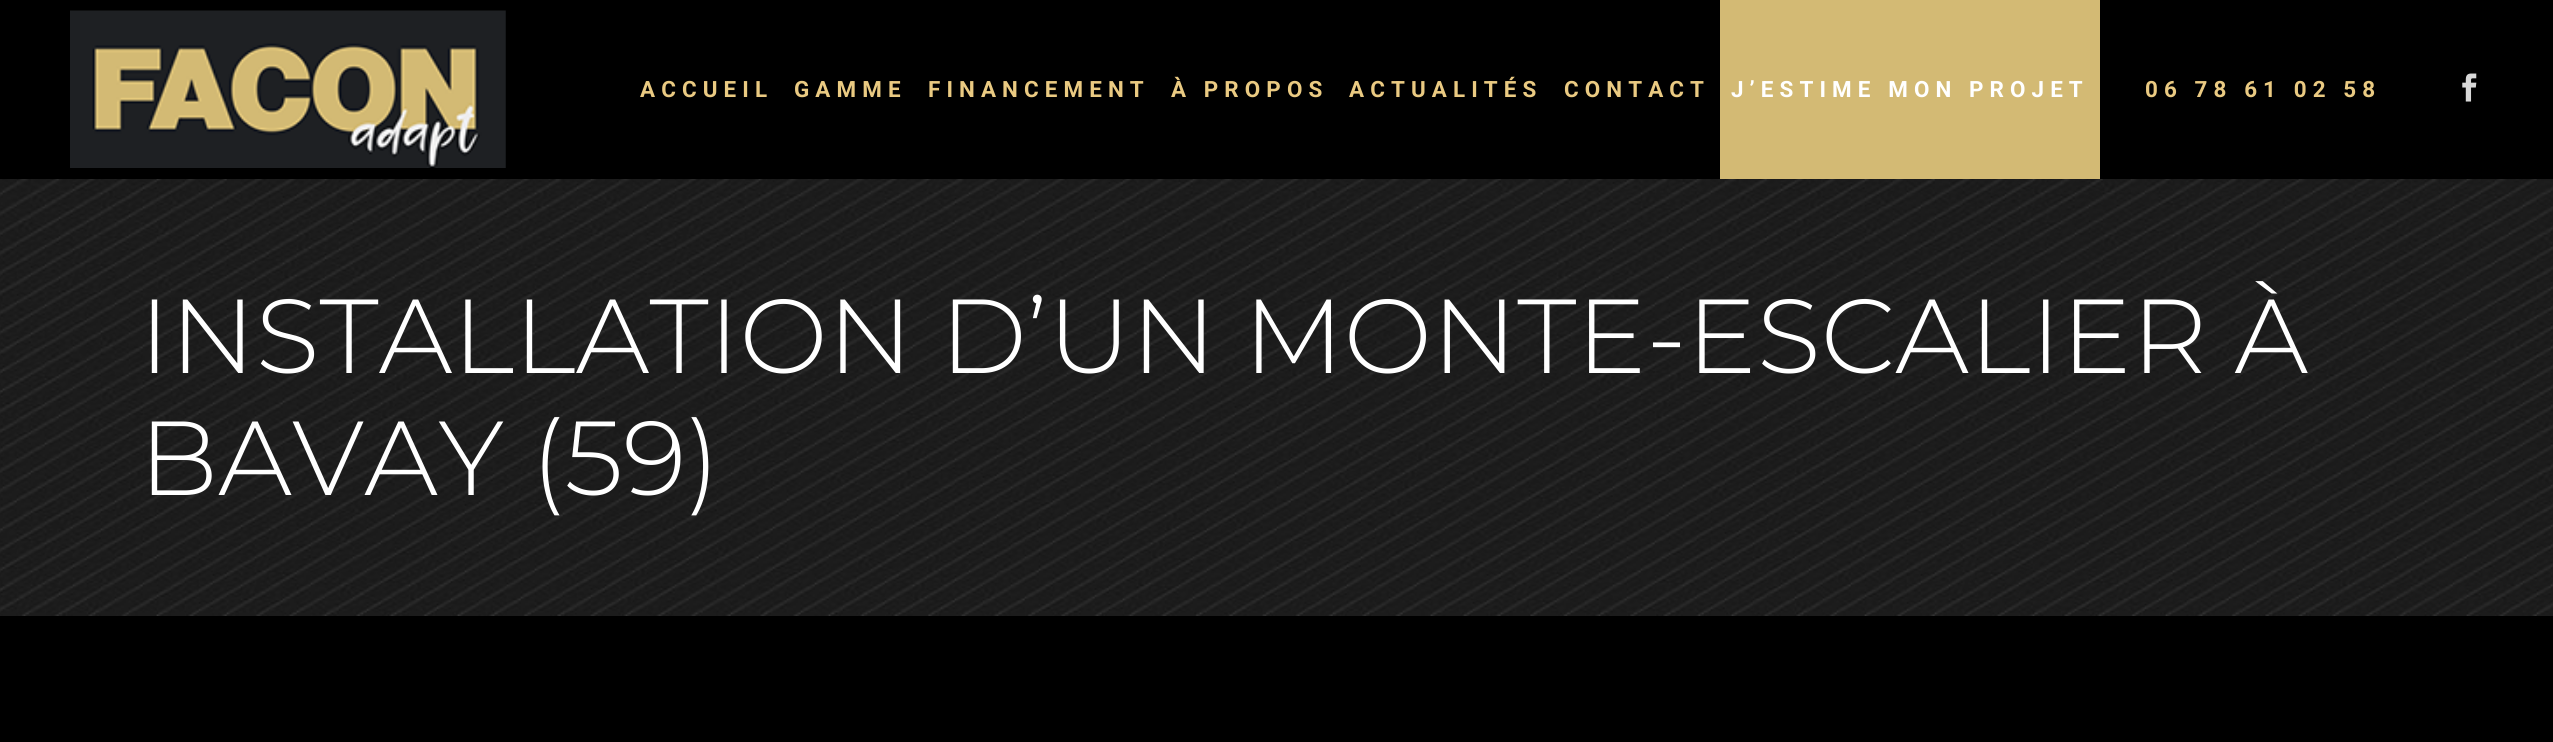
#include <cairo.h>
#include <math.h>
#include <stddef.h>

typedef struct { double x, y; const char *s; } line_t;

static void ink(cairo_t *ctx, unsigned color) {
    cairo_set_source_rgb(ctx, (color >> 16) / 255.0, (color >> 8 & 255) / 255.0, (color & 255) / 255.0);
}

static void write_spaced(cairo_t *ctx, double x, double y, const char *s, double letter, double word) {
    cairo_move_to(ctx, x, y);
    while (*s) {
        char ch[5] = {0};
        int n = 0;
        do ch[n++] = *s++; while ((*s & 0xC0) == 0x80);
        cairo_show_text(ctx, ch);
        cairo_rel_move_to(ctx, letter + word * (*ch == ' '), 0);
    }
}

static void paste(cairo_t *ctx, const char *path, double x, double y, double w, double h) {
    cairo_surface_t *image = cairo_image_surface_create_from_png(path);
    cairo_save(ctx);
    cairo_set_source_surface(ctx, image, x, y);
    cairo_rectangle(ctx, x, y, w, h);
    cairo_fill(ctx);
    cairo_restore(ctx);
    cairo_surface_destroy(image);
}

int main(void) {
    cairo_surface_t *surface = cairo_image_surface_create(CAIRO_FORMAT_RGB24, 2553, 742);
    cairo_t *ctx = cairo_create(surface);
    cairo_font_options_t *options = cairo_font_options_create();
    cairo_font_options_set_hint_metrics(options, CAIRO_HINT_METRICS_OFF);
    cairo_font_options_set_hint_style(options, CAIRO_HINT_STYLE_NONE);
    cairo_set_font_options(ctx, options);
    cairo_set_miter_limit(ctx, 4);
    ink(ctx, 0x000000);
    cairo_paint(ctx);
    paste(ctx, "media/1.png", 70, 10, 436, 158);
    cairo_select_font_face(ctx, "Roboto", CAIRO_FONT_SLANT_NORMAL, CAIRO_FONT_WEIGHT_BOLD);
    cairo_set_font_size(ctx, 22.4);
    ink(ctx, 0xEACA82);
    {
        static const line_t items[] = {
            {640, 97, "ACCUEIL"},
            {794, 97, "GAMME"},
            {928, 97, "FINANCEMENT"},
            {1171, 97, "À PROPOS"},
            {1349, 97, "ACTUALITÉS"},
            {1564, 97, "CONTACT"},
        };
        for (size_t i = 0; i < sizeof items / sizeof *items; i++) {
            write_spaced(ctx, items[i].x, items[i].y, items[i].s, 6.1, 0);
        }
    }
    ink(ctx, 0xD3BA74);
    cairo_rectangle(ctx, 1720, 0, 380, 179);
    cairo_fill(ctx);
    ink(ctx, 0xFFFFFF);
    write_spaced(ctx, 1731, 97, "J’ESTIME MON PROJET", 6.1, 0);
    ink(ctx, 0xEACA82);
    write_spaced(ctx, 2145, 97, "06 78 61 02 58", 6.1, 0);
    paste(ctx, "media/2.png", 2462, 73, 15, 29);
    paste(ctx, "media/3.png", 0, 179, 2553, 437);
    cairo_select_font_face(ctx, "Montserrat Light", CAIRO_FONT_SLANT_NORMAL, CAIRO_FONT_WEIGHT_NORMAL);
    cairo_set_font_size(ctx, 105);
    ink(ctx, 0xFFFFFF);
    cairo_move_to(ctx, 139, 373);
    cairo_show_text(ctx, "INSTALLATION D’UN MONTE-ESCALIER À");
    cairo_move_to(ctx, 139, 495);
    cairo_show_text(ctx, "BAVAY (59)");
    cairo_surface_write_to_png(surface, "image.png");
    cairo_font_options_destroy(options);
    cairo_destroy(ctx);
    cairo_surface_destroy(surface);
    return 0;
}
